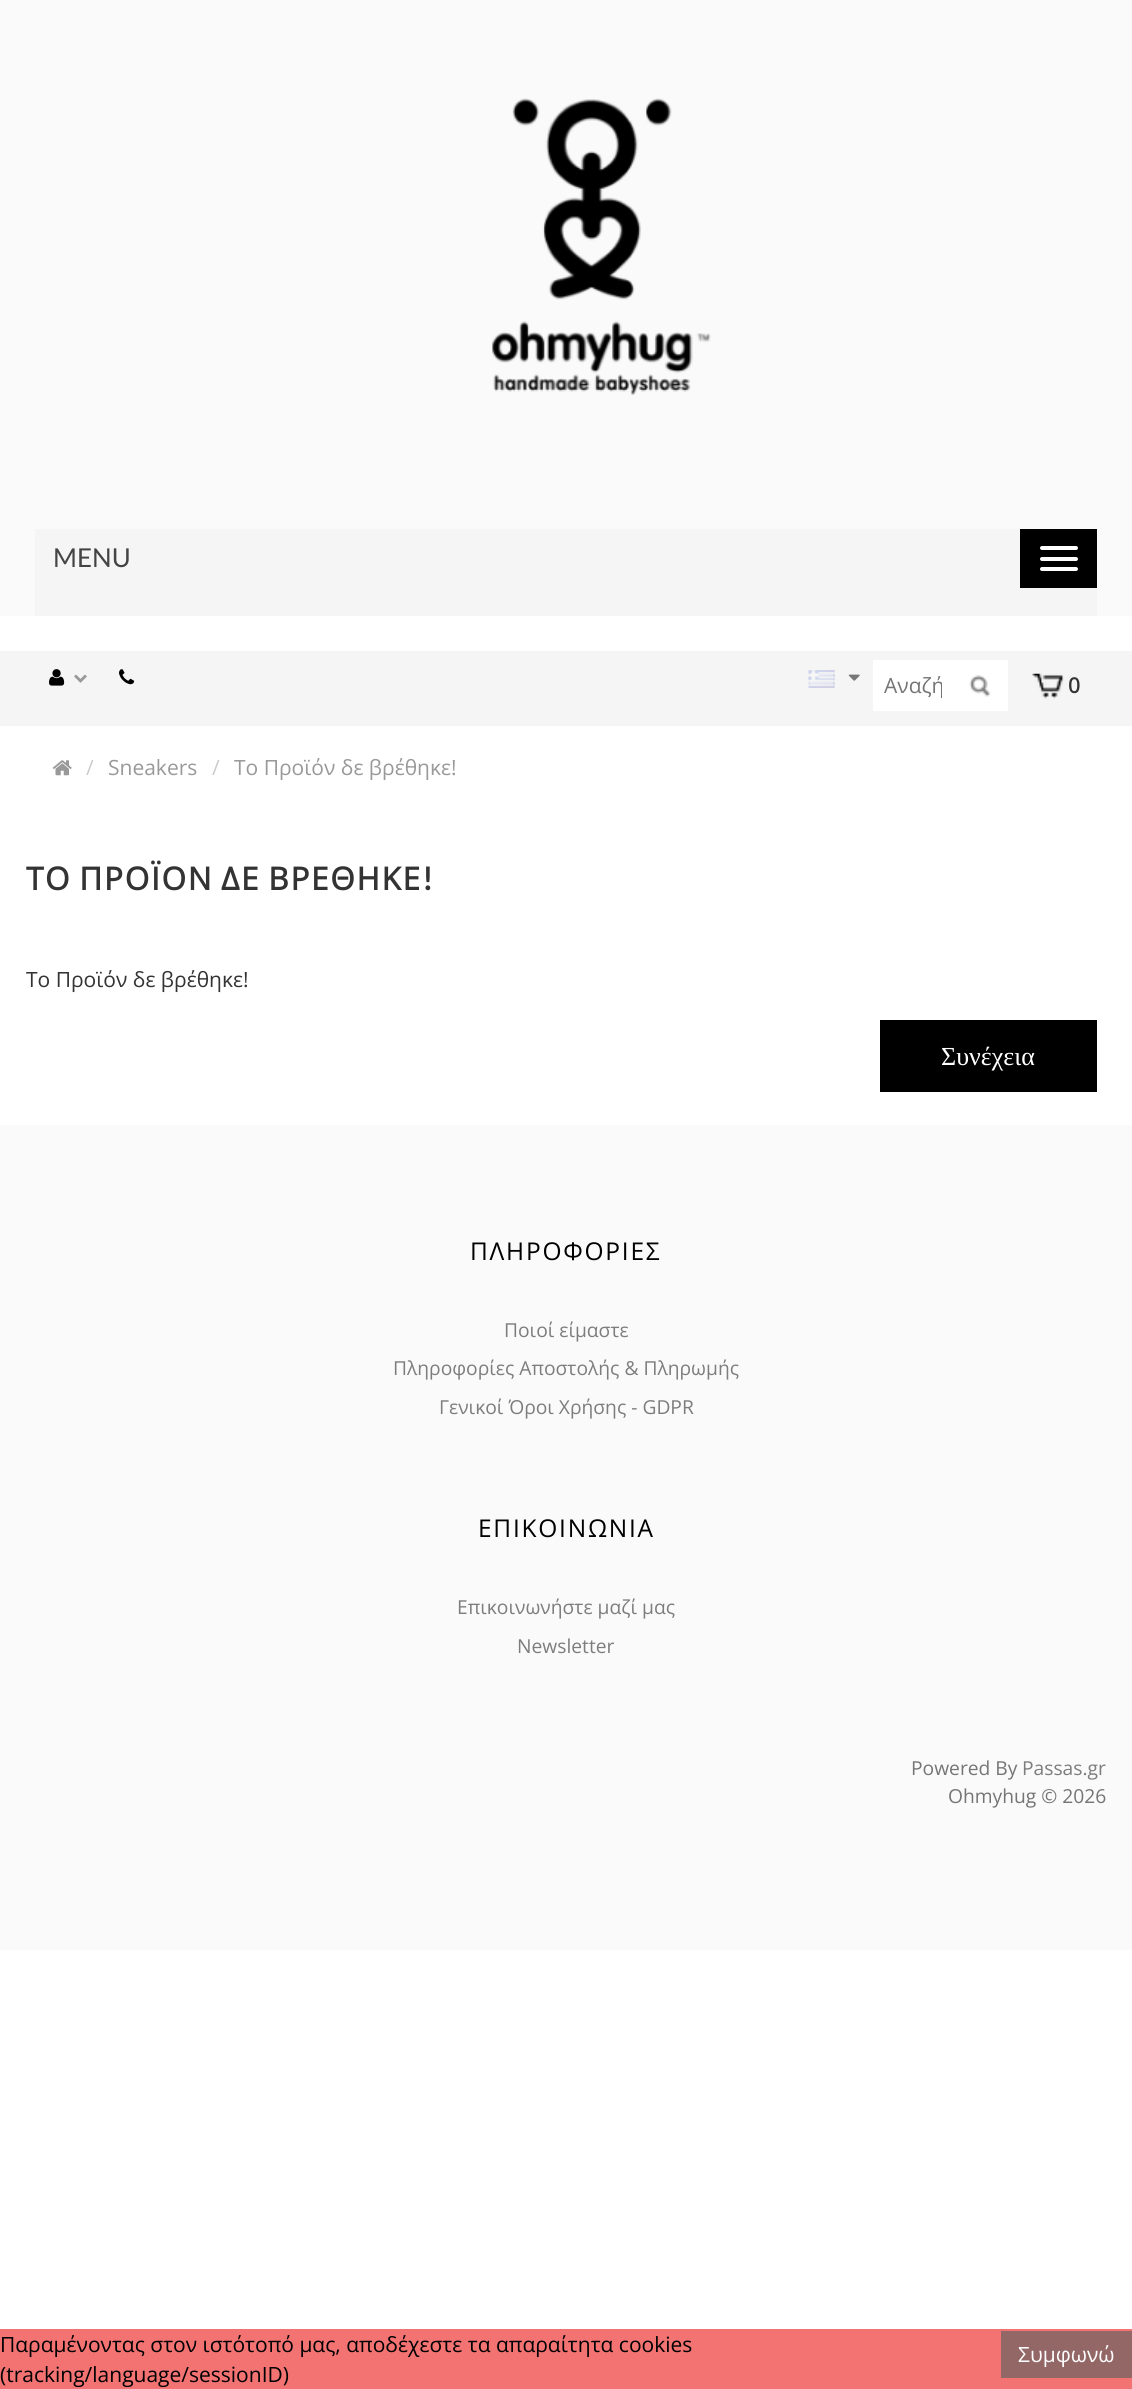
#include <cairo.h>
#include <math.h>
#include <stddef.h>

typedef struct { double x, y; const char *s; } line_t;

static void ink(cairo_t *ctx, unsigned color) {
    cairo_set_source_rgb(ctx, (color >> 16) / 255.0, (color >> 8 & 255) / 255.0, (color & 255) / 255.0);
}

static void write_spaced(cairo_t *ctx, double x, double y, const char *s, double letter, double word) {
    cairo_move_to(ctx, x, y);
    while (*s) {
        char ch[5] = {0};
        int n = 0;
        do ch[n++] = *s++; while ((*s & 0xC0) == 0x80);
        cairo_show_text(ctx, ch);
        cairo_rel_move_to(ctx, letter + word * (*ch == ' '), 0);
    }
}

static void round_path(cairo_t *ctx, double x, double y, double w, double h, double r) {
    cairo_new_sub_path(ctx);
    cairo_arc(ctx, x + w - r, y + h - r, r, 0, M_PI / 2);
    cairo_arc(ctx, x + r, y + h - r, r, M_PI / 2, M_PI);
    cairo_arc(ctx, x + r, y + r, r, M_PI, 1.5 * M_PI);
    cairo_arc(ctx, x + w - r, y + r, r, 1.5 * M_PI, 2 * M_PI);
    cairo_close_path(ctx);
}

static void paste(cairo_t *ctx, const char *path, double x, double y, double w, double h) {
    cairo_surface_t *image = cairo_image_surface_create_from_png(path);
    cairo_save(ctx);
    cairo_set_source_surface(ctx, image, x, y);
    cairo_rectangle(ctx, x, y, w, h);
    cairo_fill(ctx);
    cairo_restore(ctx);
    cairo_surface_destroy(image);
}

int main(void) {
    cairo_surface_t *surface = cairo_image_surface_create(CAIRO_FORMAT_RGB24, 1132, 2389);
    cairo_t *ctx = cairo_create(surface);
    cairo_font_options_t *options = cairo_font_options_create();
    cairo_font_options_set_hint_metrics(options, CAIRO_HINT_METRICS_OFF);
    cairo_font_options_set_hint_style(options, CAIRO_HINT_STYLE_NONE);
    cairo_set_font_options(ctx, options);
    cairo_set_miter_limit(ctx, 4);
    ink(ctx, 0xFFFFFF);
    cairo_paint(ctx);
    ink(ctx, 0xFAFAFA);
    cairo_rectangle(ctx, 0, 0, 1132, 616);
    cairo_fill(ctx);
    paste(ctx, "media/1.png", 492, 98, 219, 298);
    ink(ctx, 0xF5F5F5);
    cairo_rectangle(ctx, 35, 529, 1062, 87);
    cairo_fill(ctx);
    cairo_select_font_face(ctx, "Lato", CAIRO_FONT_SLANT_NORMAL, CAIRO_FONT_WEIGHT_NORMAL);
    cairo_set_font_size(ctx, 26);
    ink(ctx, 0x444444);
    cairo_move_to(ctx, 53, 567);
    cairo_show_text(ctx, "MENU");
    ink(ctx, 0x000000);
    cairo_rectangle(ctx, 1020, 529, 77, 59);
    cairo_fill(ctx);
    ink(ctx, 0xFFFFFF);
    round_path(ctx, 1040, 546, 38, 4, 2);
    cairo_fill(ctx);
    round_path(ctx, 1040, 557, 38, 4, 2);
    cairo_fill(ctx);
    round_path(ctx, 1040, 567, 38, 4, 2);
    cairo_fill(ctx);
    ink(ctx, 0xF5F5F5);
    cairo_rectangle(ctx, 0, 651, 1132, 75);
    cairo_fill(ctx);
    paste(ctx, "media/2.png", 49, 669, 16, 17);
    paste(ctx, "media/3.png", 74, 674, 13, 9);
    paste(ctx, "media/4.png", 119, 669, 16, 16);
    paste(ctx, "media/5.png", 808, 670, 27, 18);
    paste(ctx, "media/6.png", 848, 674, 12, 7);
    ink(ctx, 0xFFFFFF);
    cairo_rectangle(ctx, 873, 660, 135, 51);
    cairo_fill(ctx);
    paste(ctx, "media/7.png", 969, 675, 22, 22);
    cairo_save(ctx);
    cairo_rectangle(ctx, 884, 670, 58, 30);
    cairo_clip(ctx);
    cairo_select_font_face(ctx, "Open Sans", CAIRO_FONT_SLANT_NORMAL, CAIRO_FONT_WEIGHT_NORMAL);
    cairo_set_font_size(ctx, 21);
    ink(ctx, 0x757575);
    cairo_move_to(ctx, 884, 693);
    cairo_show_text(ctx, "Αναζή");
    cairo_restore(ctx);
    paste(ctx, "media/8.png", 1032, 673, 32, 26);
    cairo_select_font_face(ctx, "Open Sans", CAIRO_FONT_SLANT_NORMAL, CAIRO_FONT_WEIGHT_BOLD);
    cairo_set_font_size(ctx, 21);
    ink(ctx, 0x333333);
    cairo_move_to(ctx, 1068, 693);
    cairo_show_text(ctx, "0");
    paste(ctx, "media/9.png", 52, 760, 20, 16);
    cairo_select_font_face(ctx, "Open Sans", CAIRO_FONT_SLANT_NORMAL, CAIRO_FONT_WEIGHT_NORMAL);
    ink(ctx, 0xCCCCCC);
    cairo_move_to(ctx, 86, 775);
    cairo_show_text(ctx, "/");
    ink(ctx, 0x999999);
    cairo_move_to(ctx, 108, 775);
    cairo_show_text(ctx, "Sneakers");
    ink(ctx, 0xCCCCCC);
    cairo_move_to(ctx, 212, 775);
    cairo_show_text(ctx, "/");
    ink(ctx, 0x999999);
    cairo_move_to(ctx, 234, 775);
    cairo_show_text(ctx, "Το Προϊόν δε βρέθηκε!");
    cairo_select_font_face(ctx, "Open Sans", CAIRO_FONT_SLANT_NORMAL, CAIRO_FONT_WEIGHT_BOLD);
    cairo_set_font_size(ctx, 31.5);
    ink(ctx, 0x333333);
    write_spaced(ctx, 26, 890, "ΤΟ ΠΡΟΪΟΝ ΔΕ ΒΡΕΘΗΚΕ", 1.75, -2);
    cairo_select_font_face(ctx, "Lato", CAIRO_FONT_SLANT_NORMAL, CAIRO_FONT_WEIGHT_BOLD);
    write_spaced(ctx, 422, 890, "!", 1.75, 0);
    cairo_select_font_face(ctx, "Open Sans", CAIRO_FONT_SLANT_NORMAL, CAIRO_FONT_WEIGHT_NORMAL);
    cairo_set_font_size(ctx, 21);
    cairo_move_to(ctx, 26, 987);
    cairo_show_text(ctx, "Το Προϊόν δε βρέθηκε!");
    ink(ctx, 0x000000);
    cairo_rectangle(ctx, 880, 1020, 217, 72);
    cairo_fill(ctx);
    cairo_select_font_face(ctx, "Liberation Serif", CAIRO_FONT_SLANT_NORMAL, CAIRO_FONT_WEIGHT_NORMAL);
    cairo_set_font_size(ctx, 26);
    ink(ctx, 0xFFFFFF);
    cairo_move_to(ctx, 941, 1065);
    cairo_show_text(ctx, "Συνέχεια");
    ink(ctx, 0xFAFAFA);
    cairo_rectangle(ctx, 0, 1125, 1132, 825);
    cairo_fill(ctx);
    cairo_select_font_face(ctx, "Open Sans", CAIRO_FONT_SLANT_NORMAL, CAIRO_FONT_WEIGHT_NORMAL);
    cairo_set_font_size(ctx, 24.5);
    ink(ctx, 0x000000);
    write_spaced(ctx, 470, 1260, "ΠΛΗΡΟΦΟΡΙΕΣ", 1.75, 0);
    cairo_set_font_size(ctx, 19.25);
    ink(ctx, 0x7D7D7D);
    {
        static const line_t items[] = {
            {504, 1337, "Ποιοί είμαστε"},
            {393, 1375, "Πληροφορίες Αποστολής & Πληρωμής"},
            {439, 1414, "Γενικοί Όροι Χρήσης - GDPR"},
        };
        for (size_t i = 0; i < sizeof items / sizeof *items; i++) {
            cairo_move_to(ctx, items[i].x, items[i].y);
            cairo_show_text(ctx, items[i].s);
        }
    }
    cairo_set_font_size(ctx, 24.5);
    ink(ctx, 0x000000);
    write_spaced(ctx, 478, 1537, "ΕΠΙΚΟΙΝΩΝΙΑ", 1.75, 0);
    cairo_set_font_size(ctx, 19.25);
    ink(ctx, 0x7D7D7D);
    cairo_move_to(ctx, 457, 1614);
    cairo_show_text(ctx, "Επικοινωνήστε μαζί μας");
    cairo_move_to(ctx, 517, 1653);
    cairo_show_text(ctx, "Newsletter");
    ink(ctx, 0x757575);
    cairo_move_to(ctx, 911, 1775);
    cairo_show_text(ctx, "Powered By");
    ink(ctx, 0x7D7D7D);
    cairo_move_to(ctx, 1022, 1775);
    cairo_show_text(ctx, "Passas.gr");
    ink(ctx, 0x757575);
    cairo_move_to(ctx, 948, 1803);
    cairo_show_text(ctx, "Ohmyhug © 2026");
    ink(ctx, 0xF37373);
    cairo_rectangle(ctx, 0, 2329, 1132, 60);
    cairo_fill(ctx);
    cairo_set_font_size(ctx, 21);
    ink(ctx, 0x000000);
    cairo_move_to(ctx, 0, 2352);
    cairo_show_text(ctx, "Παραμένοντας στον ιστότοπό μας, αποδέχεστε τα απαραίτητα cookies");
    ink(ctx, 0x946767);
    cairo_rectangle(ctx, 1001, 2331, 131, 47);
    cairo_fill(ctx);
    ink(ctx, 0xFFFFFF);
    cairo_move_to(ctx, 1018, 2362);
    cairo_show_text(ctx, "Συμφωνώ");
    ink(ctx, 0x000000);
    cairo_move_to(ctx, 0, 2382);
    cairo_show_text(ctx, "(tracking/language/sessionID)");
    cairo_surface_write_to_png(surface, "image.png");
    cairo_font_options_destroy(options);
    cairo_destroy(ctx);
    cairo_surface_destroy(surface);
    return 0;
}
